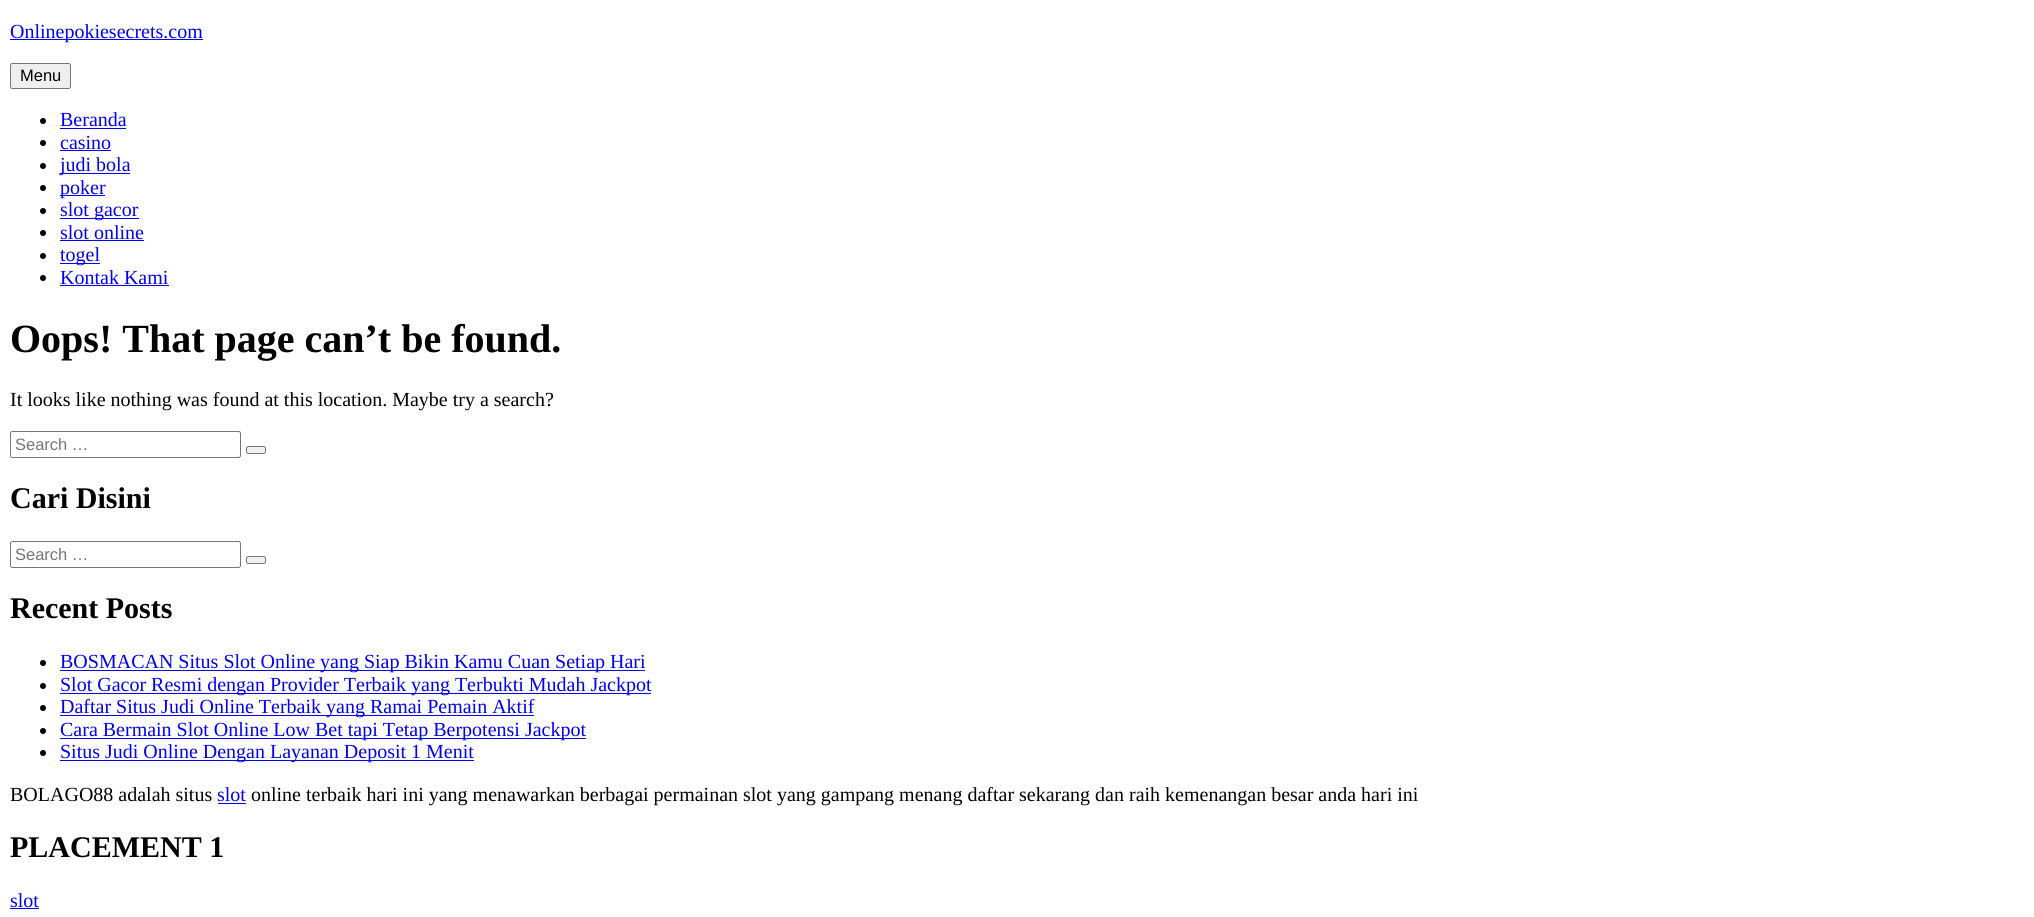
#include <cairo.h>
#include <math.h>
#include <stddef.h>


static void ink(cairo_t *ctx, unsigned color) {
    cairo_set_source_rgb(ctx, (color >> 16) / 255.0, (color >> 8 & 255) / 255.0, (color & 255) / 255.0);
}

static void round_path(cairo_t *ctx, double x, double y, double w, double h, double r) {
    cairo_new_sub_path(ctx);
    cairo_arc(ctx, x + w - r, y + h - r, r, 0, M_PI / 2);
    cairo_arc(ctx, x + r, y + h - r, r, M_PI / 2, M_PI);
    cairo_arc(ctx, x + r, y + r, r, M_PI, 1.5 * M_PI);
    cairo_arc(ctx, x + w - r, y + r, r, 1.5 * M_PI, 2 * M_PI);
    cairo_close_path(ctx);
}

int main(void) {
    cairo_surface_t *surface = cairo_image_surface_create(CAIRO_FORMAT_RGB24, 2034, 917);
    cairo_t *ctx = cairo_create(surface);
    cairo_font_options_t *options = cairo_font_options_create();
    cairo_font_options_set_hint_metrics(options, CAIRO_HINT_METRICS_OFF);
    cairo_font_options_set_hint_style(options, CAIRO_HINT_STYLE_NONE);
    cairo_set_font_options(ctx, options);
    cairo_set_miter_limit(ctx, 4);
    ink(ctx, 0xFFFFFF);
    cairo_paint(ctx);
    ink(ctx, 0x0000EE);
    cairo_rectangle(ctx, 10, 39, 193, 1);
    cairo_fill(ctx);
    cairo_select_font_face(ctx, "Liberation Serif", CAIRO_FONT_SLANT_NORMAL, CAIRO_FONT_WEIGHT_NORMAL);
    cairo_set_font_size(ctx, 20);
    cairo_move_to(ctx, 10, 38);
    cairo_show_text(ctx, "Onlinepokiesecrets.com");
    ink(ctx, 0xEFEFEF);
    round_path(ctx, 10.5, 63.5, 60, 25, 2);
    cairo_fill_preserve(ctx);
    ink(ctx, 0x767676);
    cairo_set_line_width(ctx, 1);
    cairo_stroke(ctx);
    cairo_select_font_face(ctx, "Liberation Sans", CAIRO_FONT_SLANT_NORMAL, CAIRO_FONT_WEIGHT_NORMAL);
    cairo_set_font_size(ctx, 16.5);
    ink(ctx, 0x000000);
    cairo_move_to(ctx, 20, 81);
    cairo_show_text(ctx, "Menu");
    cairo_new_path(ctx);
    cairo_arc(ctx, 43, 121, 3, 0, 2 * M_PI);
    cairo_fill(ctx);
    cairo_select_font_face(ctx, "Liberation Serif", CAIRO_FONT_SLANT_NORMAL, CAIRO_FONT_WEIGHT_NORMAL);
    cairo_set_font_size(ctx, 20);
    ink(ctx, 0x0000EE);
    cairo_move_to(ctx, 60, 126);
    cairo_show_text(ctx, "Beranda");
    cairo_rectangle(ctx, 60, 128, 66, 1);
    cairo_fill(ctx);
    ink(ctx, 0x000000);
    cairo_arc(ctx, 43, 143, 3, 0, 2 * M_PI);
    cairo_fill(ctx);
    ink(ctx, 0x0000EE);
    cairo_move_to(ctx, 60, 149);
    cairo_show_text(ctx, "casino");
    cairo_rectangle(ctx, 60, 150, 51, 1);
    cairo_fill(ctx);
    ink(ctx, 0x000000);
    cairo_arc(ctx, 43, 166, 3, 0, 2 * M_PI);
    cairo_fill(ctx);
    ink(ctx, 0x0000EE);
    cairo_rectangle(ctx, 60, 173, 70, 1);
    cairo_fill(ctx);
    cairo_move_to(ctx, 60, 171);
    cairo_show_text(ctx, "judi bola");
    ink(ctx, 0x000000);
    cairo_new_path(ctx);
    cairo_arc(ctx, 43, 188, 3, 0, 2 * M_PI);
    cairo_fill(ctx);
    ink(ctx, 0x0000EE);
    cairo_rectangle(ctx, 60, 195, 45, 1);
    cairo_fill(ctx);
    cairo_move_to(ctx, 60, 194);
    cairo_show_text(ctx, "poker");
    ink(ctx, 0x000000);
    cairo_new_path(ctx);
    cairo_arc(ctx, 43, 211, 3, 0, 2 * M_PI);
    cairo_fill(ctx);
    ink(ctx, 0x0000EE);
    cairo_rectangle(ctx, 60, 218, 79, 1);
    cairo_fill(ctx);
    cairo_move_to(ctx, 60, 216);
    cairo_show_text(ctx, "slot gacor");
    ink(ctx, 0x000000);
    cairo_new_path(ctx);
    cairo_arc(ctx, 43, 233, 3, 0, 2 * M_PI);
    cairo_fill(ctx);
    ink(ctx, 0x0000EE);
    cairo_move_to(ctx, 60, 239);
    cairo_show_text(ctx, "slot online");
    cairo_rectangle(ctx, 60, 240, 84, 1);
    cairo_fill(ctx);
    ink(ctx, 0x000000);
    cairo_arc(ctx, 43, 256, 3, 0, 2 * M_PI);
    cairo_fill(ctx);
    ink(ctx, 0x0000EE);
    cairo_rectangle(ctx, 60, 263, 40, 1);
    cairo_fill(ctx);
    cairo_move_to(ctx, 60, 261);
    cairo_show_text(ctx, "togel");
    ink(ctx, 0x000000);
    cairo_new_path(ctx);
    cairo_arc(ctx, 43, 278, 3, 0, 2 * M_PI);
    cairo_fill(ctx);
    ink(ctx, 0x0000EE);
    cairo_move_to(ctx, 60, 284);
    cairo_show_text(ctx, "Kontak Kami");
    cairo_rectangle(ctx, 60, 285, 109, 1);
    cairo_fill(ctx);
    cairo_select_font_face(ctx, "Liberation Serif", CAIRO_FONT_SLANT_NORMAL, CAIRO_FONT_WEIGHT_BOLD);
    cairo_set_font_size(ctx, 40);
    ink(ctx, 0x000000);
    cairo_move_to(ctx, 10, 352);
    cairo_show_text(ctx, "Oops! That page can’t be found.");
    cairo_select_font_face(ctx, "Liberation Serif", CAIRO_FONT_SLANT_NORMAL, CAIRO_FONT_WEIGHT_NORMAL);
    cairo_set_font_size(ctx, 20);
    cairo_move_to(ctx, 10, 406);
    cairo_show_text(ctx, "It looks like nothing was found at this location. Maybe try a search?");
    round_path(ctx, 10.5, 431.5, 230, 26, 2);
    ink(ctx, 0x767676);
    cairo_stroke(ctx);
    cairo_select_font_face(ctx, "Liberation Sans", CAIRO_FONT_SLANT_NORMAL, CAIRO_FONT_WEIGHT_NORMAL);
    cairo_set_font_size(ctx, 16.5);
    ink(ctx, 0x757575);
    cairo_move_to(ctx, 15, 450);
    cairo_show_text(ctx, "Search …");
    ink(ctx, 0xEFEFEF);
    round_path(ctx, 246.5, 446.5, 19, 7, 2);
    cairo_fill_preserve(ctx);
    ink(ctx, 0x767676);
    cairo_stroke(ctx);
    cairo_select_font_face(ctx, "Liberation Serif", CAIRO_FONT_SLANT_NORMAL, CAIRO_FONT_WEIGHT_BOLD);
    cairo_set_font_size(ctx, 30);
    ink(ctx, 0x000000);
    cairo_move_to(ctx, 10, 508);
    cairo_show_text(ctx, "Cari Disini");
    round_path(ctx, 10.5, 541.5, 230, 26, 2);
    ink(ctx, 0x767676);
    cairo_stroke(ctx);
    cairo_select_font_face(ctx, "Liberation Sans", CAIRO_FONT_SLANT_NORMAL, CAIRO_FONT_WEIGHT_NORMAL);
    cairo_set_font_size(ctx, 16.5);
    ink(ctx, 0x757575);
    cairo_move_to(ctx, 15, 560);
    cairo_show_text(ctx, "Search …");
    ink(ctx, 0xEFEFEF);
    round_path(ctx, 246.5, 556.5, 19, 7, 2);
    cairo_fill_preserve(ctx);
    ink(ctx, 0x767676);
    cairo_stroke(ctx);
    cairo_select_font_face(ctx, "Liberation Serif", CAIRO_FONT_SLANT_NORMAL, CAIRO_FONT_WEIGHT_BOLD);
    cairo_set_font_size(ctx, 30);
    ink(ctx, 0x000000);
    cairo_move_to(ctx, 10, 618);
    cairo_show_text(ctx, "Recent Posts");
    cairo_new_path(ctx);
    cairo_arc(ctx, 43, 663, 3, 0, 2 * M_PI);
    cairo_fill(ctx);
    ink(ctx, 0x0000EE);
    cairo_rectangle(ctx, 60, 670, 585, 1);
    cairo_fill(ctx);
    cairo_select_font_face(ctx, "Liberation Serif", CAIRO_FONT_SLANT_NORMAL, CAIRO_FONT_WEIGHT_NORMAL);
    cairo_set_font_size(ctx, 20);
    cairo_move_to(ctx, 60, 668);
    cairo_show_text(ctx, "BOSMACAN Situs Slot Online yang Siap Bikin Kamu Cuan Setiap Hari");
    ink(ctx, 0x000000);
    cairo_new_path(ctx);
    cairo_arc(ctx, 43, 686, 3, 0, 2 * M_PI);
    cairo_fill(ctx);
    ink(ctx, 0x0000EE);
    cairo_rectangle(ctx, 60, 693, 591, 1);
    cairo_fill(ctx);
    cairo_move_to(ctx, 60, 691);
    cairo_show_text(ctx, "Slot Gacor Resmi dengan Provider Terbaik yang Terbukti Mudah Jackpot");
    ink(ctx, 0x000000);
    cairo_new_path(ctx);
    cairo_arc(ctx, 43, 708, 3, 0, 2 * M_PI);
    cairo_fill(ctx);
    ink(ctx, 0x0000EE);
    cairo_rectangle(ctx, 60, 715, 474, 1);
    cairo_fill(ctx);
    cairo_move_to(ctx, 60, 713);
    cairo_show_text(ctx, "Daftar Situs Judi Online Terbaik yang Ramai Pemain Aktif");
    ink(ctx, 0x000000);
    cairo_new_path(ctx);
    cairo_arc(ctx, 43, 731, 3, 0, 2 * M_PI);
    cairo_fill(ctx);
    ink(ctx, 0x0000EE);
    cairo_rectangle(ctx, 60, 738, 526, 1);
    cairo_fill(ctx);
    cairo_move_to(ctx, 60, 736);
    cairo_show_text(ctx, "Cara Bermain Slot Online Low Bet tapi Tetap Berpotensi Jackpot");
    ink(ctx, 0x000000);
    cairo_new_path(ctx);
    cairo_arc(ctx, 43, 753, 3, 0, 2 * M_PI);
    cairo_fill(ctx);
    ink(ctx, 0x0000EE);
    cairo_rectangle(ctx, 60, 760, 414, 1);
    cairo_fill(ctx);
    cairo_move_to(ctx, 60, 758);
    cairo_show_text(ctx, "Situs Judi Online Dengan Layanan Deposit 1 Menit");
    ink(ctx, 0x000000);
    cairo_move_to(ctx, 10, 801);
    cairo_show_text(ctx, "BOLAGO88 adalah situs");
    ink(ctx, 0x0000EE);
    cairo_move_to(ctx, 217, 801);
    cairo_show_text(ctx, "slot");
    cairo_rectangle(ctx, 218, 803, 28, 1);
    cairo_fill(ctx);
    ink(ctx, 0x000000);
    cairo_move_to(ctx, 251, 801);
    cairo_show_text(ctx, "online terbaik hari ini yang menawarkan berbagai permainan slot yang gampang menang daftar sekarang dan raih kemenangan besar anda hari ini");
    cairo_select_font_face(ctx, "Liberation Serif", CAIRO_FONT_SLANT_NORMAL, CAIRO_FONT_WEIGHT_BOLD);
    cairo_set_font_size(ctx, 30);
    cairo_move_to(ctx, 10, 857);
    cairo_show_text(ctx, "PLACEMENT 1");
    cairo_select_font_face(ctx, "Liberation Serif", CAIRO_FONT_SLANT_NORMAL, CAIRO_FONT_WEIGHT_NORMAL);
    cairo_set_font_size(ctx, 20);
    ink(ctx, 0x0000EE);
    cairo_move_to(ctx, 10, 907);
    cairo_show_text(ctx, "slot");
    cairo_rectangle(ctx, 10, 908, 29, 1);
    cairo_fill(ctx);
    cairo_surface_write_to_png(surface, "image.png");
    cairo_font_options_destroy(options);
    cairo_destroy(ctx);
    cairo_surface_destroy(surface);
    return 0;
}
